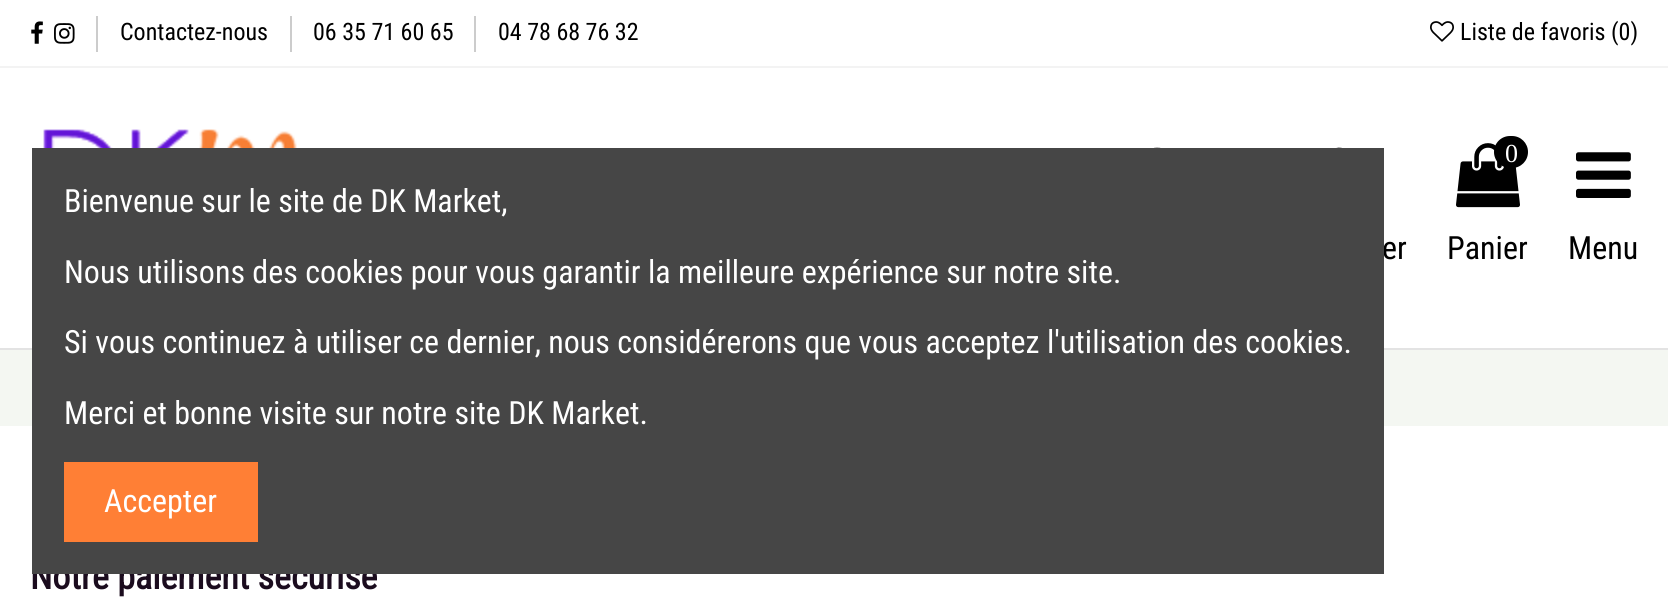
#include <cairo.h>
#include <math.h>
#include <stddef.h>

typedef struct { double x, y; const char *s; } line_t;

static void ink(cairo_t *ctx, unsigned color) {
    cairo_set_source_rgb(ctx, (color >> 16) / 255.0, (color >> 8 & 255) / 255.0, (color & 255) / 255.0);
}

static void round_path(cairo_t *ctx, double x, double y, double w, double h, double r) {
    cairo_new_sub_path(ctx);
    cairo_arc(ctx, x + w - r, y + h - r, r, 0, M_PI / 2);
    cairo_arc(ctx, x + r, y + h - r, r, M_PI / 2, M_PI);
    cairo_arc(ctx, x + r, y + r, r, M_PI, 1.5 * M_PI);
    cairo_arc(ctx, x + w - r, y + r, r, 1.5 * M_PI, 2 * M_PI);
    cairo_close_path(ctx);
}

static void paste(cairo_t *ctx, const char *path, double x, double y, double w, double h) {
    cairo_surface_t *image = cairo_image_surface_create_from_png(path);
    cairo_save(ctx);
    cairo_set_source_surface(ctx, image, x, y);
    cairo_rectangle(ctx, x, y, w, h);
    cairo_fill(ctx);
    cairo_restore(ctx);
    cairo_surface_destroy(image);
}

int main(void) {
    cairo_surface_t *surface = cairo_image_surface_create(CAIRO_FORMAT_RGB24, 1668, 605);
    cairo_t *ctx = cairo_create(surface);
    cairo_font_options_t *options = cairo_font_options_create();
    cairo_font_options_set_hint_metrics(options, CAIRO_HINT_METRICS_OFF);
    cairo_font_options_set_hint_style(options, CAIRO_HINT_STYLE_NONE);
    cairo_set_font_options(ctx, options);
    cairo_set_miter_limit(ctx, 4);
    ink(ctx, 0xFFFFFF);
    cairo_paint(ctx);
    ink(ctx, 0xF3F3F3);
    cairo_rectangle(ctx, 0, 66, 1668, 2);
    cairo_fill(ctx);
    paste(ctx, "media/1.png", 31, 21, 12, 23);
    paste(ctx, "media/2.png", 54, 23, 21, 21);
    ink(ctx, 0xCCCCCC);
    cairo_rectangle(ctx, 96, 16, 2, 36);
    cairo_fill(ctx);
    cairo_select_font_face(ctx, "Roboto Condensed", CAIRO_FONT_SLANT_NORMAL, CAIRO_FONT_WEIGHT_NORMAL);
    cairo_set_font_size(ctx, 24);
    ink(ctx, 0x000000);
    cairo_move_to(ctx, 120, 40);
    cairo_show_text(ctx, "Contactez-nous");
    ink(ctx, 0xCCCCCC);
    cairo_rectangle(ctx, 290, 16, 2, 36);
    cairo_fill(ctx);
    ink(ctx, 0x000000);
    cairo_move_to(ctx, 313, 40);
    cairo_show_text(ctx, "06 35 71 60 65");
    ink(ctx, 0xCCCCCC);
    cairo_rectangle(ctx, 474, 16, 2, 36);
    cairo_fill(ctx);
    ink(ctx, 0x000000);
    cairo_move_to(ctx, 498, 40);
    cairo_show_text(ctx, "04 78 68 76 32");
    paste(ctx, "media/3.png", 1430, 21, 24, 21);
    cairo_move_to(ctx, 1460, 40);
    cairo_show_text(ctx, "Liste de favoris (0)");
    ink(ctx, 0xE3E3E3);
    cairo_rectangle(ctx, 0, 348, 1668, 2);
    cairo_fill(ctx);
    paste(ctx, "media/4.png", 43, 129, 254, 19);
    paste(ctx, "media/5.png", 1154, 147, 7, 1);
    paste(ctx, "media/6.png", 1456, 143, 64, 65);
    ink(ctx, 0x000000);
    round_path(ctx, 1494, 136, 34, 32, 16);
    cairo_fill(ctx);
    cairo_select_font_face(ctx, "Liberation Serif", CAIRO_FONT_SLANT_NORMAL, CAIRO_FONT_WEIGHT_NORMAL);
    cairo_set_font_size(ctx, 26);
    ink(ctx, 0xFFFFFF);
    cairo_move_to(ctx, 1505, 162);
    cairo_show_text(ctx, "0");
    cairo_select_font_face(ctx, "Roboto Condensed", CAIRO_FONT_SLANT_NORMAL, CAIRO_FONT_WEIGHT_NORMAL);
    cairo_set_font_size(ctx, 32);
    ink(ctx, 0x000000);
    cairo_move_to(ctx, 1447, 259);
    cairo_show_text(ctx, "Panier");
    cairo_new_path(ctx);
    cairo_move_to(ctx, 1362, 193);
    cairo_curve_to(ctx, 1362, 202, 1356, 203, 1349, 203);
    cairo_line_to(ctx, 1321, 202);
    cairo_curve_to(ctx, 1311, 198, 1316, 173, 1328, 173);
    cairo_curve_to(ctx, 1334, 179, 1344, 179, 1350, 173);
    cairo_curve_to(ctx, 1360, 173, 1362, 185, 1362, 193);
    cairo_close_path(ctx);
    cairo_move_to(ctx, 1349, 152);
    cairo_curve_to(ctx, 1361, 164, 1342, 184, 1329, 171);
    cairo_curve_to(ctx, 1316, 158, 1336, 139, 1349, 152);
    cairo_close_path(ctx);
    cairo_fill(ctx);
    cairo_move_to(ctx, 1382, 259);
    cairo_show_text(ctx, "er");
    paste(ctx, "media/7.png", 1576, 152, 55, 46);
    cairo_move_to(ctx, 1568, 259);
    cairo_show_text(ctx, "Menu");
    ink(ctx, 0xF4F7F2);
    cairo_rectangle(ctx, 0, 350, 1668, 76);
    cairo_fill(ctx);
    cairo_select_font_face(ctx, "Roboto Condensed", CAIRO_FONT_SLANT_NORMAL, CAIRO_FONT_WEIGHT_BOLD);
    cairo_set_font_size(ctx, 36);
    ink(ctx, 0x1B0C1E);
    cairo_move_to(ctx, 30, 589);
    cairo_show_text(ctx, "Notre paiement sécurisé");
    ink(ctx, 0x464646);
    cairo_rectangle(ctx, 32, 148, 1352, 426);
    cairo_fill(ctx);
    cairo_select_font_face(ctx, "Roboto Condensed", CAIRO_FONT_SLANT_NORMAL, CAIRO_FONT_WEIGHT_NORMAL);
    cairo_set_font_size(ctx, 32);
    ink(ctx, 0xFFFFFF);
    {
        static const line_t items[] = {
            {64, 212, "Bienvenue sur le site de DK Market,"},
            {64, 283, "Nous utilisons des cookies pour vous garantir la meilleure expérience sur notre site."},
            {64, 353, "Si vous continuez à utiliser ce dernier, nous considérerons que vous acceptez l'utilisation des cookies."},
            {64, 424, "Merci et bonne visite sur notre site DK Market."},
        };
        for (size_t i = 0; i < sizeof items / sizeof *items; i++) {
            cairo_move_to(ctx, items[i].x, items[i].y);
            cairo_show_text(ctx, items[i].s);
        }
    }
    ink(ctx, 0xFF7F35);
    cairo_rectangle(ctx, 64, 462, 194, 80);
    cairo_fill(ctx);
    ink(ctx, 0xFFFFFF);
    cairo_move_to(ctx, 104, 512);
    cairo_show_text(ctx, "Accepter");
    cairo_surface_write_to_png(surface, "image.png");
    cairo_font_options_destroy(options);
    cairo_destroy(ctx);
    cairo_surface_destroy(surface);
    return 0;
}
